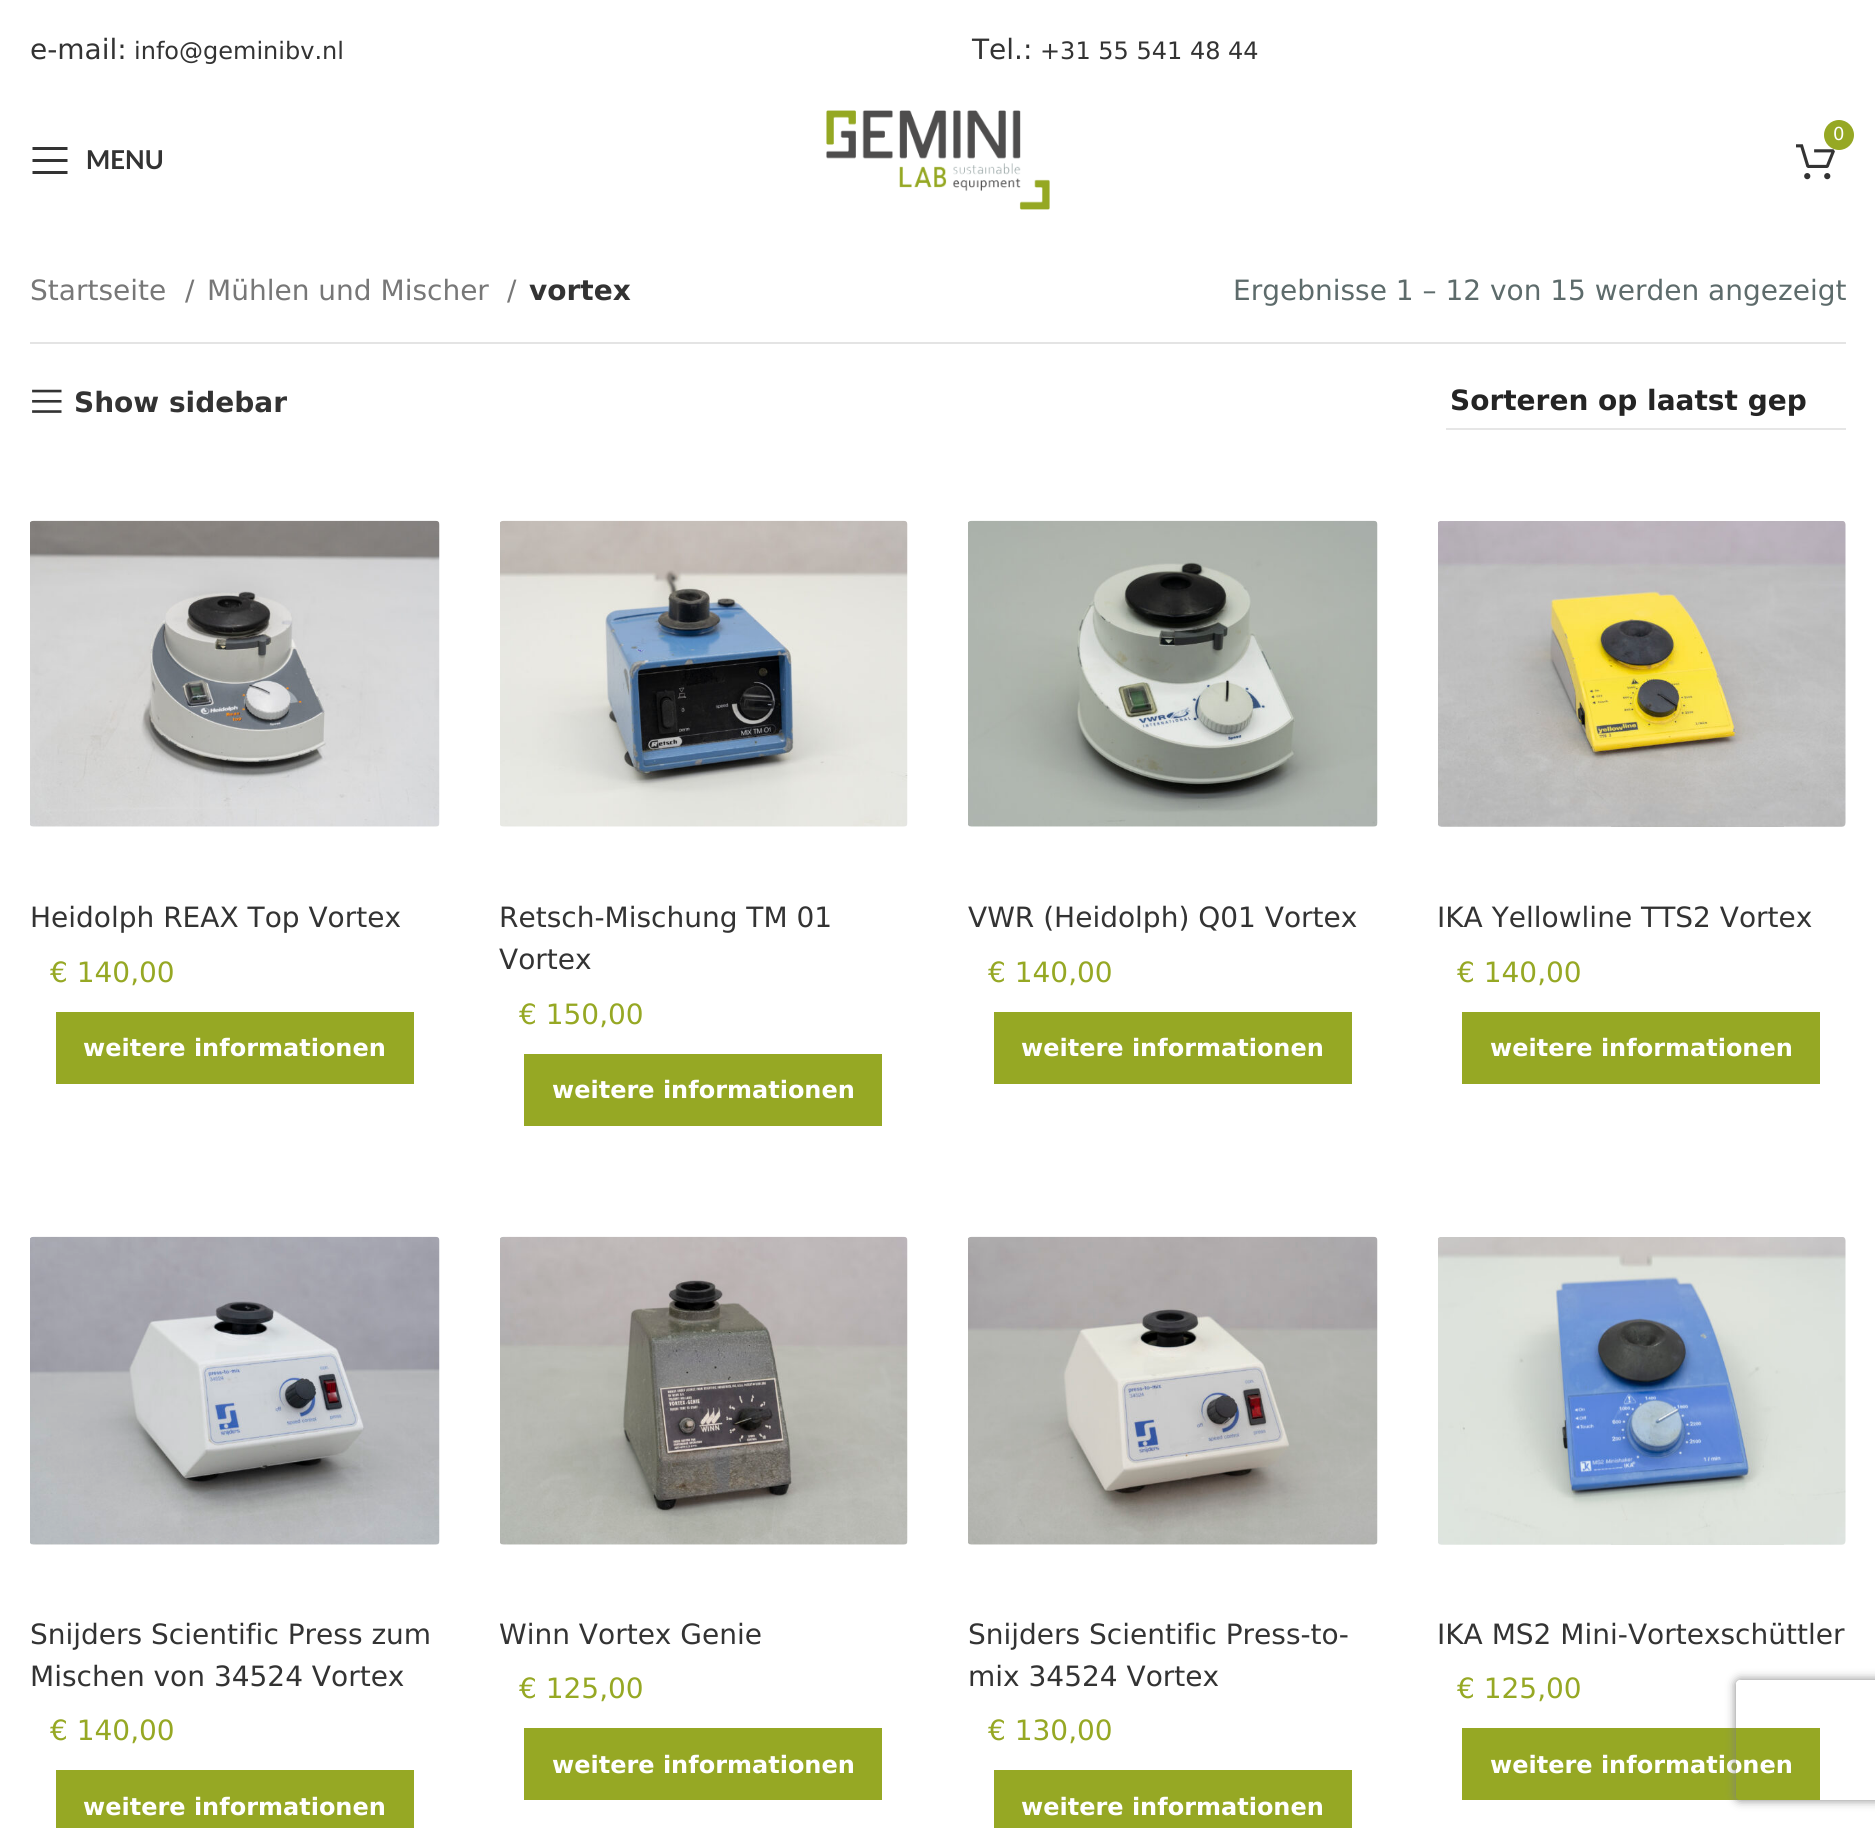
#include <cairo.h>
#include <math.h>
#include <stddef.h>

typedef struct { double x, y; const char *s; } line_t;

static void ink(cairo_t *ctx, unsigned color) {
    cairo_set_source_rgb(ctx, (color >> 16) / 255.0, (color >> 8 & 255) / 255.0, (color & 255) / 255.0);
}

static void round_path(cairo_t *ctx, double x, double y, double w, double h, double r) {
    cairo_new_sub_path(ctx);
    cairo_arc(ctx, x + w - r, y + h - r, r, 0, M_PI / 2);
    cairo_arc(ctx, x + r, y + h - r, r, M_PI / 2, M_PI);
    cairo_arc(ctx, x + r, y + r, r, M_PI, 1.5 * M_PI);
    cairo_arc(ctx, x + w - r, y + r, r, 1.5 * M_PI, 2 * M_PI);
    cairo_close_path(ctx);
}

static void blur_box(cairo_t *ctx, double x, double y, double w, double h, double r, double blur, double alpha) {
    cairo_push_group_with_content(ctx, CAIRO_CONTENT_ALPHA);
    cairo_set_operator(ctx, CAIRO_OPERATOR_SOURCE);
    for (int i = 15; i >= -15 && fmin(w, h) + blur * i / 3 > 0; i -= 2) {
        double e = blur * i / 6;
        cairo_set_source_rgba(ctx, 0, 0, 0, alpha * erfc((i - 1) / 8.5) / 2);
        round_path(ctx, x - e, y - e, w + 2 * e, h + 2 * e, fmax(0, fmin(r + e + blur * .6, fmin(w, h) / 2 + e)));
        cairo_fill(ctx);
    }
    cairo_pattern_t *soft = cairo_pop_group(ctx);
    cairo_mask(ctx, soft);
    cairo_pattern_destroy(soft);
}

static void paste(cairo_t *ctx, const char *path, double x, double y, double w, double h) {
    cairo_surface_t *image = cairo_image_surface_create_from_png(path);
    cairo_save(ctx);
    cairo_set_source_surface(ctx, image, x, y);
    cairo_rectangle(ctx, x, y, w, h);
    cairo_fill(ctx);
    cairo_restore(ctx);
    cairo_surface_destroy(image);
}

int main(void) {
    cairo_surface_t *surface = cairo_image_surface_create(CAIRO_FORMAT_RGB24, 1875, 1828);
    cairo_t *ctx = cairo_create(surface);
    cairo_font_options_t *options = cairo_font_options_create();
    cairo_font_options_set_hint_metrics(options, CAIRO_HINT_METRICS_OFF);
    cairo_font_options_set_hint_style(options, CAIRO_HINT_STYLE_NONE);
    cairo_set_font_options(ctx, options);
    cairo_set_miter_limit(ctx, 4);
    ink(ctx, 0xFFFFFF);
    cairo_paint(ctx);
    cairo_select_font_face(ctx, "DejaVu Sans", CAIRO_FONT_SLANT_NORMAL, CAIRO_FONT_WEIGHT_NORMAL);
    cairo_set_font_size(ctx, 28);
    ink(ctx, 0x333333);
    cairo_move_to(ctx, 30, 59);
    cairo_show_text(ctx, "e-mail:");
    cairo_set_font_size(ctx, 24);
    cairo_move_to(ctx, 134, 59);
    cairo_show_text(ctx, "info@geminibv.nl");
    cairo_set_font_size(ctx, 28);
    cairo_move_to(ctx, 972, 59);
    cairo_show_text(ctx, "Tel.:");
    cairo_set_font_size(ctx, 24);
    cairo_move_to(ctx, 1040, 59);
    cairo_show_text(ctx, "+31 55 541 48 44");
    paste(ctx, "media/1.png", 826, 110, 224, 100);
    paste(ctx, "media/2.png", 1796, 144, 39, 36);
    ink(ctx, 0x96A824);
    cairo_arc(ctx, 1839, 135, 15, 0, 2 * M_PI);
    cairo_fill(ctx);
    cairo_set_font_size(ctx, 18);
    ink(ctx, 0xFFFFFF);
    cairo_move_to(ctx, 1833, 140);
    cairo_show_text(ctx, "0");
    ink(ctx, 0x333333);
    cairo_new_path(ctx);
    cairo_move_to(ctx, 32.5, 150);
    cairo_line_to(ctx, 67.5, 150);
    cairo_line_to(ctx, 67.5, 147);
    cairo_line_to(ctx, 32.5, 147);
    cairo_close_path(ctx);
    cairo_move_to(ctx, 32.5, 162);
    cairo_line_to(ctx, 67.5, 162);
    cairo_line_to(ctx, 67.5, 159);
    cairo_line_to(ctx, 32.5, 159);
    cairo_close_path(ctx);
    cairo_move_to(ctx, 32.5, 174);
    cairo_line_to(ctx, 67.5, 174);
    cairo_line_to(ctx, 67.5, 171);
    cairo_line_to(ctx, 32.5, 171);
    cairo_close_path(ctx);
    cairo_fill(ctx);
    cairo_select_font_face(ctx, "Lato", CAIRO_FONT_SLANT_NORMAL, CAIRO_FONT_WEIGHT_BOLD);
    cairo_set_font_size(ctx, 26);
    cairo_move_to(ctx, 86, 169);
    cairo_show_text(ctx, "MENU");
    ink(ctx, 0xE4E4E4);
    cairo_rectangle(ctx, 30, 342, 1816, 2);
    cairo_fill(ctx);
    cairo_select_font_face(ctx, "DejaVu Sans", CAIRO_FONT_SLANT_NORMAL, CAIRO_FONT_WEIGHT_NORMAL);
    cairo_set_font_size(ctx, 28);
    ink(ctx, 0x777777);
    {
        static const line_t items[] = {
            {30, 300, "Startseite"},
            {185, 300, "/"},
            {207, 300, "Mühlen und Mischer"},
            {507, 300, "/"},
        };
        for (size_t i = 0; i < sizeof items / sizeof *items; i++) {
            cairo_move_to(ctx, items[i].x, items[i].y);
            cairo_show_text(ctx, items[i].s);
        }
    }
    cairo_select_font_face(ctx, "DejaVu Sans", CAIRO_FONT_SLANT_NORMAL, CAIRO_FONT_WEIGHT_BOLD);
    ink(ctx, 0x333333);
    cairo_move_to(ctx, 529, 300);
    cairo_show_text(ctx, "vortex");
    cairo_select_font_face(ctx, "DejaVu Sans", CAIRO_FONT_SLANT_NORMAL, CAIRO_FONT_WEIGHT_NORMAL);
    ink(ctx, 0x5D6B6B);
    cairo_move_to(ctx, 1233, 300);
    cairo_show_text(ctx, "Ergebnisse 1 – 12 von 15 werden angezeigt");
    paste(ctx, "media/3.png", 32, 389, 30, 24);
    cairo_select_font_face(ctx, "DejaVu Sans", CAIRO_FONT_SLANT_NORMAL, CAIRO_FONT_WEIGHT_BOLD);
    ink(ctx, 0x333333);
    cairo_move_to(ctx, 74, 412);
    cairo_show_text(ctx, "Show sidebar");
    ink(ctx, 0xE6E6E6);
    cairo_rectangle(ctx, 1446, 428, 400, 2);
    cairo_fill(ctx);
    ink(ctx, 0x242424);
    cairo_move_to(ctx, 1450, 410);
    cairo_show_text(ctx, "Sorteren op laatst gep");
    paste(ctx, "media/4.png", 30, 520, 410, 307);
    cairo_select_font_face(ctx, "DejaVu Sans", CAIRO_FONT_SLANT_NORMAL, CAIRO_FONT_WEIGHT_NORMAL);
    ink(ctx, 0x333333);
    cairo_move_to(ctx, 30, 927);
    cairo_show_text(ctx, "Heidolph REAX Top Vortex");
    ink(ctx, 0x96A824);
    cairo_move_to(ctx, 50, 982);
    cairo_show_text(ctx, "€ 140,00");
    cairo_rectangle(ctx, 56, 1012, 358, 72);
    cairo_fill(ctx);
    cairo_select_font_face(ctx, "DejaVu Sans", CAIRO_FONT_SLANT_NORMAL, CAIRO_FONT_WEIGHT_BOLD);
    cairo_set_font_size(ctx, 24);
    ink(ctx, 0xFFFFFF);
    cairo_move_to(ctx, 83, 1056);
    cairo_show_text(ctx, "weitere informationen");
    paste(ctx, "media/5.png", 500, 520, 408, 307);
    cairo_select_font_face(ctx, "DejaVu Sans", CAIRO_FONT_SLANT_NORMAL, CAIRO_FONT_WEIGHT_NORMAL);
    cairo_set_font_size(ctx, 28);
    ink(ctx, 0x333333);
    cairo_move_to(ctx, 499, 927);
    cairo_show_text(ctx, "Retsch-Mischung TM 01");
    cairo_move_to(ctx, 499, 969);
    cairo_show_text(ctx, "Vortex");
    ink(ctx, 0x96A824);
    cairo_move_to(ctx, 519, 1024);
    cairo_show_text(ctx, "€ 150,00");
    cairo_rectangle(ctx, 524, 1054, 358, 72);
    cairo_fill(ctx);
    cairo_select_font_face(ctx, "DejaVu Sans", CAIRO_FONT_SLANT_NORMAL, CAIRO_FONT_WEIGHT_BOLD);
    cairo_set_font_size(ctx, 24);
    ink(ctx, 0xFFFFFF);
    cairo_move_to(ctx, 552, 1098);
    cairo_show_text(ctx, "weitere informationen");
    paste(ctx, "media/6.png", 968, 520, 410, 307);
    cairo_select_font_face(ctx, "DejaVu Sans", CAIRO_FONT_SLANT_NORMAL, CAIRO_FONT_WEIGHT_NORMAL);
    cairo_set_font_size(ctx, 28);
    ink(ctx, 0x333333);
    cairo_move_to(ctx, 968, 927);
    cairo_show_text(ctx, "VWR (Heidolph) Q01 Vortex");
    ink(ctx, 0x96A824);
    cairo_move_to(ctx, 988, 982);
    cairo_show_text(ctx, "€ 140,00");
    cairo_rectangle(ctx, 994, 1012, 358, 72);
    cairo_fill(ctx);
    cairo_select_font_face(ctx, "DejaVu Sans", CAIRO_FONT_SLANT_NORMAL, CAIRO_FONT_WEIGHT_BOLD);
    cairo_set_font_size(ctx, 24);
    ink(ctx, 0xFFFFFF);
    cairo_move_to(ctx, 1021, 1056);
    cairo_show_text(ctx, "weitere informationen");
    paste(ctx, "media/7.png", 1438, 521, 408, 306);
    cairo_select_font_face(ctx, "DejaVu Sans", CAIRO_FONT_SLANT_NORMAL, CAIRO_FONT_WEIGHT_NORMAL);
    cairo_set_font_size(ctx, 28);
    ink(ctx, 0x333333);
    cairo_move_to(ctx, 1437, 927);
    cairo_show_text(ctx, "IKA Yellowline TTS2 Vortex");
    ink(ctx, 0x96A824);
    cairo_move_to(ctx, 1457, 982);
    cairo_show_text(ctx, "€ 140,00");
    cairo_rectangle(ctx, 1462, 1012, 358, 72);
    cairo_fill(ctx);
    cairo_select_font_face(ctx, "DejaVu Sans", CAIRO_FONT_SLANT_NORMAL, CAIRO_FONT_WEIGHT_BOLD);
    cairo_set_font_size(ctx, 24);
    ink(ctx, 0xFFFFFF);
    cairo_move_to(ctx, 1490, 1056);
    cairo_show_text(ctx, "weitere informationen");
    paste(ctx, "media/8.png", 30, 1236, 410, 309);
    cairo_select_font_face(ctx, "DejaVu Sans", CAIRO_FONT_SLANT_NORMAL, CAIRO_FONT_WEIGHT_NORMAL);
    cairo_set_font_size(ctx, 28);
    ink(ctx, 0x333333);
    cairo_move_to(ctx, 30, 1644);
    cairo_show_text(ctx, "Snijders Scientific Press zum");
    cairo_move_to(ctx, 30, 1686);
    cairo_show_text(ctx, "Mischen von 34524 Vortex");
    ink(ctx, 0x96A824);
    cairo_move_to(ctx, 50, 1740);
    cairo_show_text(ctx, "€ 140,00");
    cairo_rectangle(ctx, 56, 1770, 358, 58);
    cairo_fill(ctx);
    cairo_select_font_face(ctx, "DejaVu Sans", CAIRO_FONT_SLANT_NORMAL, CAIRO_FONT_WEIGHT_BOLD);
    cairo_set_font_size(ctx, 24);
    ink(ctx, 0xFFFFFF);
    cairo_move_to(ctx, 83, 1815);
    cairo_show_text(ctx, "weitere informationen");
    paste(ctx, "media/9.png", 500, 1236, 408, 309);
    cairo_select_font_face(ctx, "DejaVu Sans", CAIRO_FONT_SLANT_NORMAL, CAIRO_FONT_WEIGHT_NORMAL);
    cairo_set_font_size(ctx, 28);
    ink(ctx, 0x333333);
    cairo_move_to(ctx, 499, 1644);
    cairo_show_text(ctx, "Winn Vortex Genie");
    ink(ctx, 0x96A824);
    cairo_move_to(ctx, 519, 1698);
    cairo_show_text(ctx, "€ 125,00");
    cairo_rectangle(ctx, 524, 1728, 358, 72);
    cairo_fill(ctx);
    cairo_select_font_face(ctx, "DejaVu Sans", CAIRO_FONT_SLANT_NORMAL, CAIRO_FONT_WEIGHT_BOLD);
    cairo_set_font_size(ctx, 24);
    ink(ctx, 0xFFFFFF);
    cairo_move_to(ctx, 552, 1773);
    cairo_show_text(ctx, "weitere informationen");
    paste(ctx, "media/10.png", 968, 1236, 410, 309);
    cairo_select_font_face(ctx, "DejaVu Sans", CAIRO_FONT_SLANT_NORMAL, CAIRO_FONT_WEIGHT_NORMAL);
    cairo_set_font_size(ctx, 28);
    ink(ctx, 0x333333);
    cairo_move_to(ctx, 968, 1644);
    cairo_show_text(ctx, "Snijders Scientific Press-to-");
    cairo_move_to(ctx, 968, 1686);
    cairo_show_text(ctx, "mix 34524 Vortex");
    ink(ctx, 0x96A824);
    cairo_move_to(ctx, 988, 1740);
    cairo_show_text(ctx, "€ 130,00");
    cairo_rectangle(ctx, 994, 1770, 358, 58);
    cairo_fill(ctx);
    cairo_select_font_face(ctx, "DejaVu Sans", CAIRO_FONT_SLANT_NORMAL, CAIRO_FONT_WEIGHT_BOLD);
    cairo_set_font_size(ctx, 24);
    ink(ctx, 0xFFFFFF);
    cairo_move_to(ctx, 1021, 1815);
    cairo_show_text(ctx, "weitere informationen");
    paste(ctx, "media/11.png", 1438, 1237, 408, 308);
    cairo_select_font_face(ctx, "DejaVu Sans", CAIRO_FONT_SLANT_NORMAL, CAIRO_FONT_WEIGHT_NORMAL);
    cairo_set_font_size(ctx, 28);
    ink(ctx, 0x333333);
    cairo_move_to(ctx, 1437, 1644);
    cairo_show_text(ctx, "IKA MS2 Mini-Vortexschüttler");
    ink(ctx, 0x96A824);
    cairo_move_to(ctx, 1457, 1698);
    cairo_show_text(ctx, "€ 125,00");
    cairo_rectangle(ctx, 1462, 1728, 358, 72);
    cairo_fill(ctx);
    cairo_select_font_face(ctx, "DejaVu Sans", CAIRO_FONT_SLANT_NORMAL, CAIRO_FONT_WEIGHT_BOLD);
    cairo_set_font_size(ctx, 24);
    ink(ctx, 0xFFFFFF);
    cairo_move_to(ctx, 1490, 1773);
    cairo_show_text(ctx, "weitere informationen");
    cairo_save(ctx);
    cairo_set_fill_rule(ctx, CAIRO_FILL_RULE_EVEN_ODD);
    cairo_new_path(ctx);
    cairo_move_to(ctx, 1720, 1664);
    cairo_line_to(ctx, 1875, 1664);
    cairo_line_to(ctx, 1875, 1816);
    cairo_line_to(ctx, 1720, 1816);
    cairo_close_path(ctx);
    cairo_move_to(ctx, 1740, 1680);
    cairo_line_to(ctx, 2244, 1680);
    cairo_curve_to(ctx, 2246, 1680, 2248, 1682, 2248, 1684);
    cairo_line_to(ctx, 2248, 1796);
    cairo_curve_to(ctx, 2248, 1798, 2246, 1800, 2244, 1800);
    cairo_line_to(ctx, 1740, 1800);
    cairo_curve_to(ctx, 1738, 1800, 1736, 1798, 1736, 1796);
    cairo_line_to(ctx, 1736, 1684);
    cairo_curve_to(ctx, 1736, 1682, 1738, 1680, 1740, 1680);
    cairo_close_path(ctx);
    cairo_clip(ctx);
    ink(ctx, 0x808080);
    blur_box(ctx, 1736, 1680, 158, 120, 4, 5, 1);
    cairo_restore(ctx);
    cairo_surface_write_to_png(surface, "image.png");
    cairo_font_options_destroy(options);
    cairo_destroy(ctx);
    cairo_surface_destroy(surface);
    return 0;
}
